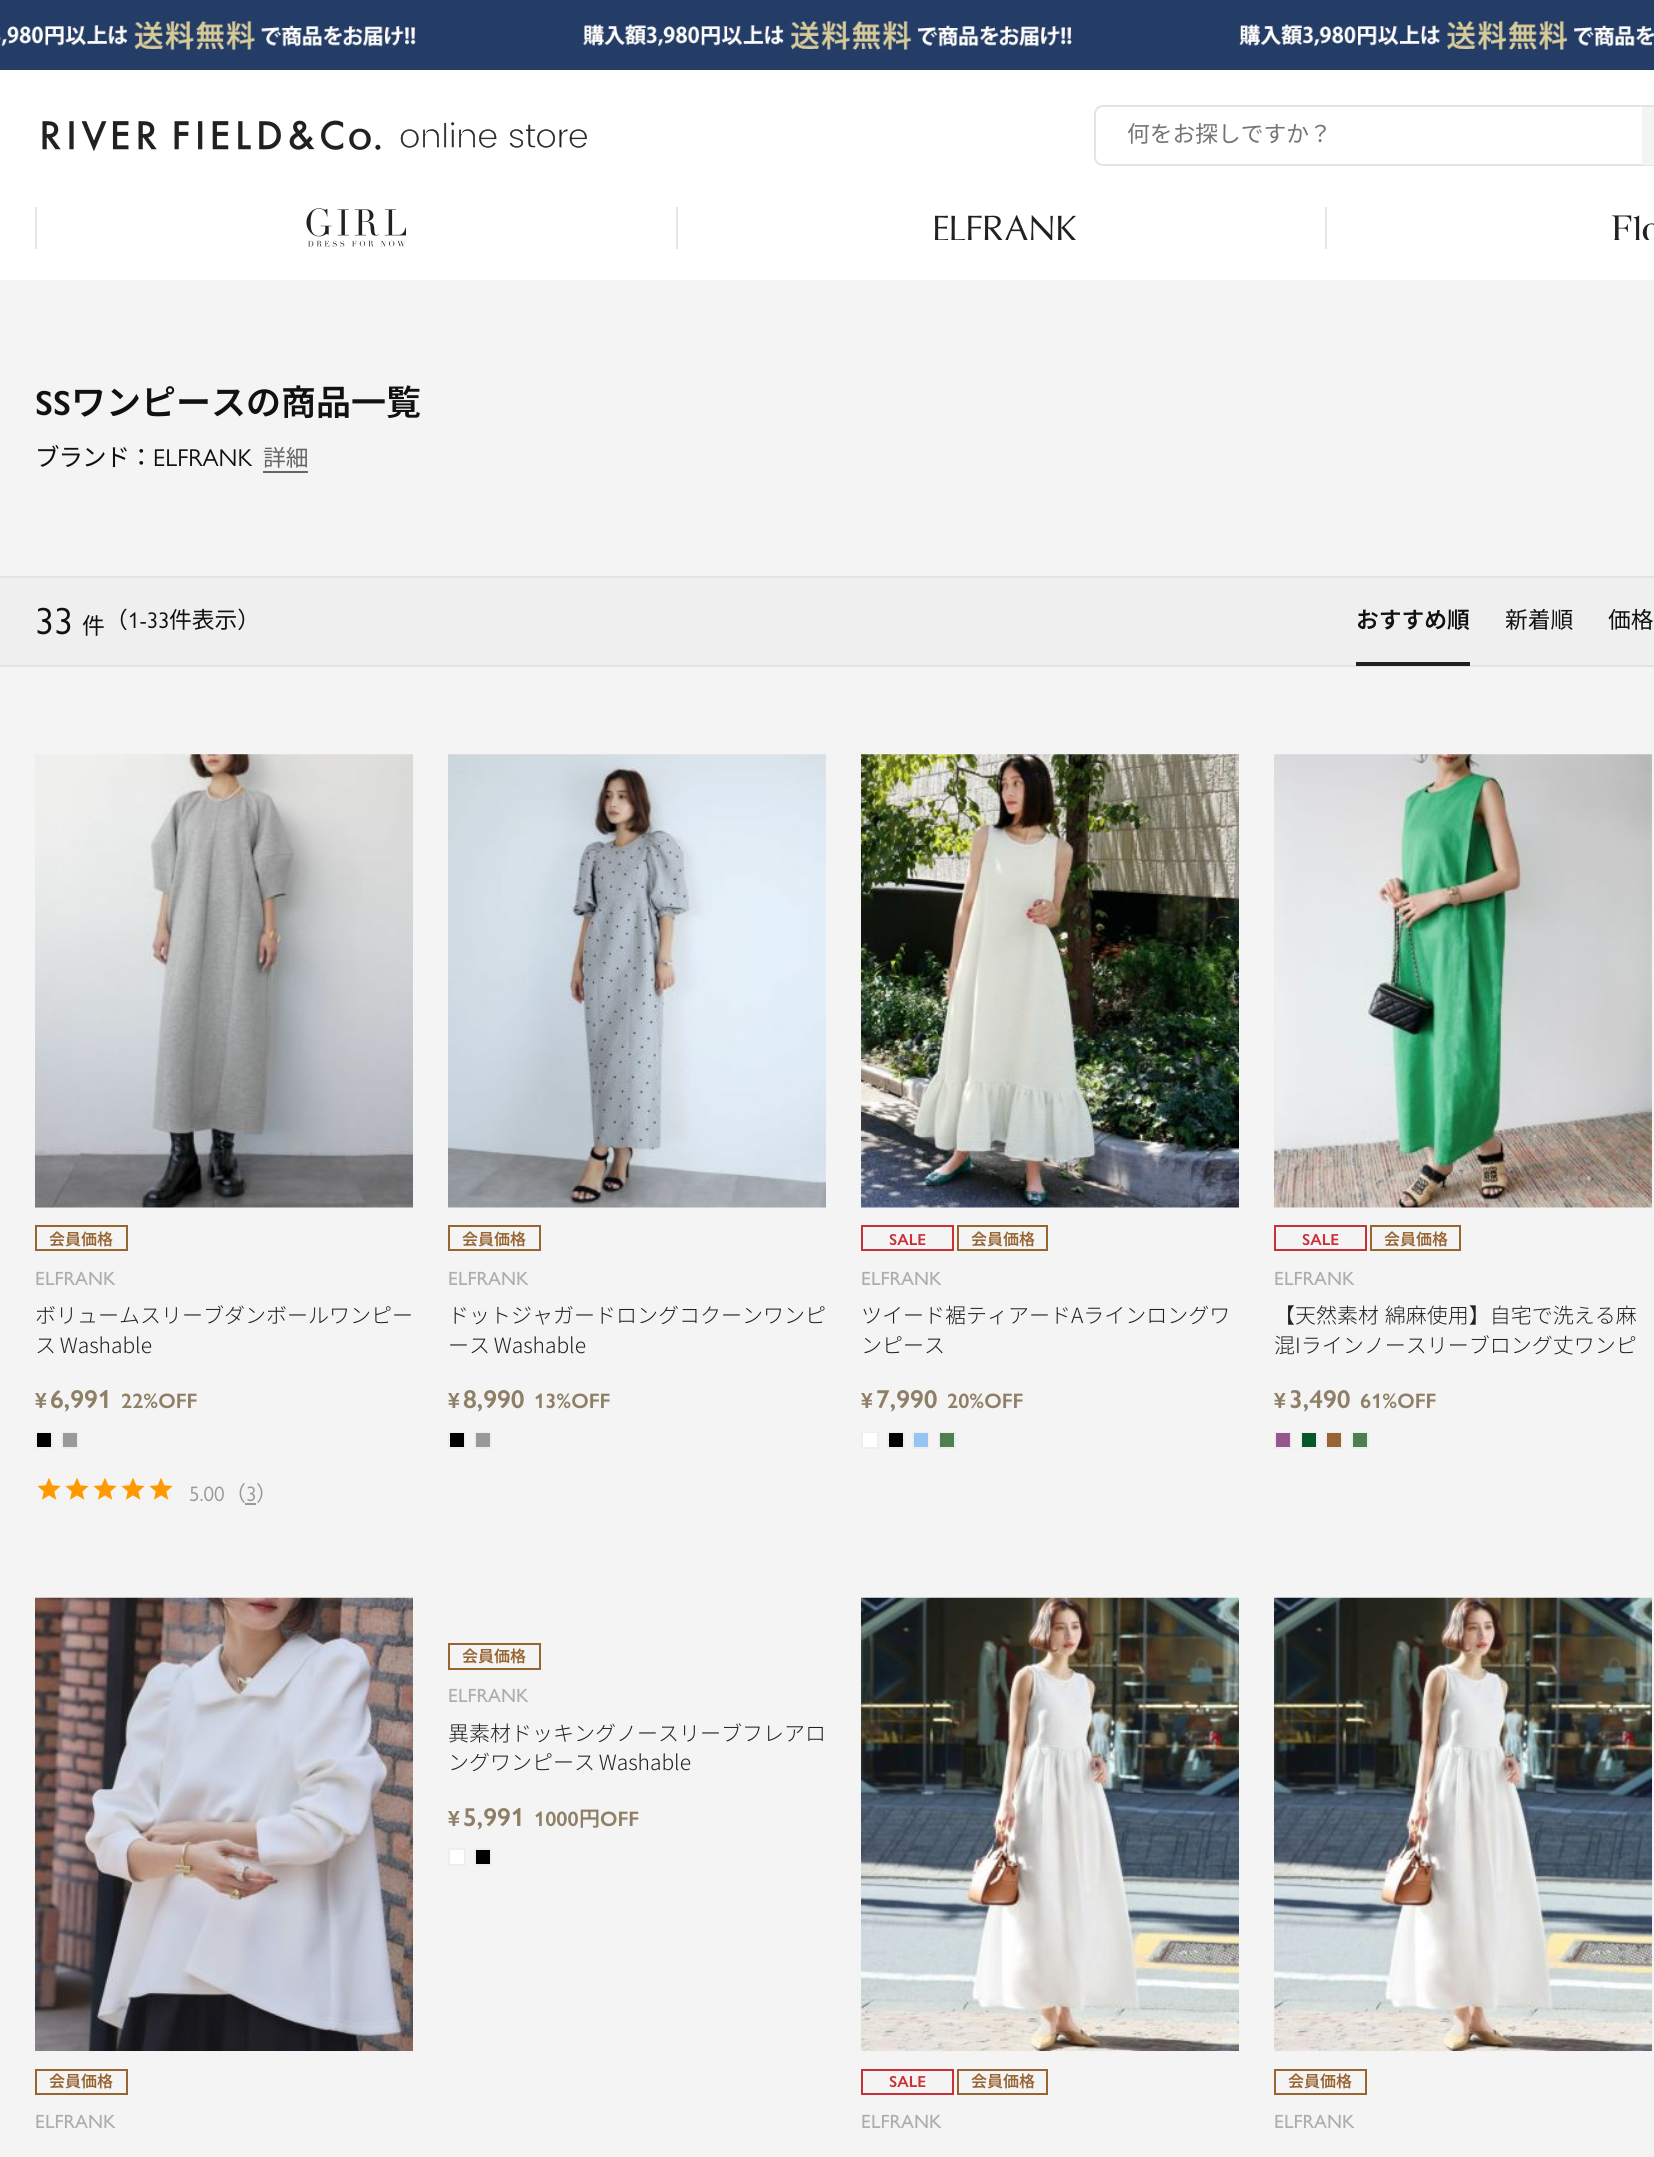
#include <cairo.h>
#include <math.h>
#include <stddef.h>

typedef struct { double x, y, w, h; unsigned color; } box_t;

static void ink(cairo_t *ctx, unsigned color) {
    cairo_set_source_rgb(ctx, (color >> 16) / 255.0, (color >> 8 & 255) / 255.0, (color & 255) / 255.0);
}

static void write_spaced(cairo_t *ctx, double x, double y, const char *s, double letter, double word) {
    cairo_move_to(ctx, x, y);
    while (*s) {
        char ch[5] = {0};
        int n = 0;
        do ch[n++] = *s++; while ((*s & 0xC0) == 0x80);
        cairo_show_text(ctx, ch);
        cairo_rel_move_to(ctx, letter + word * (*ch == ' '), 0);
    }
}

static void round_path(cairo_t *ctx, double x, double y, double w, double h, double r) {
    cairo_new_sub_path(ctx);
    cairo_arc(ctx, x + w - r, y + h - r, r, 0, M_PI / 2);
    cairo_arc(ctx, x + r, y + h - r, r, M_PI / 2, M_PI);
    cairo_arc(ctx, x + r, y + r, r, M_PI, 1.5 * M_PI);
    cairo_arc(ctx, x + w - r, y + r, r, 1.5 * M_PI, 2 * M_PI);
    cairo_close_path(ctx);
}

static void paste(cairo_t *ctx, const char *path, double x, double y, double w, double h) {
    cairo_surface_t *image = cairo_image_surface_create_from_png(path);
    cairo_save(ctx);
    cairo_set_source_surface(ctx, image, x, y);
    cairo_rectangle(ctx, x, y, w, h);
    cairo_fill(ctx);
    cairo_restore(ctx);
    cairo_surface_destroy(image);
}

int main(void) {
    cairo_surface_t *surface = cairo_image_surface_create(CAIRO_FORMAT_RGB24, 1654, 2157);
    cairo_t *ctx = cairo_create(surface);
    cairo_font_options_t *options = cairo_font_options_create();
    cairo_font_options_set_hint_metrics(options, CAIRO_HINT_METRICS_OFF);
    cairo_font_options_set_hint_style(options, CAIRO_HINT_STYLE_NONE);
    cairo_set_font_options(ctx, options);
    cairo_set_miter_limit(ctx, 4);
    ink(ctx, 0xF4F4F4);
    cairo_paint(ctx);
    ink(ctx, 0xFFFFFF);
    cairo_rectangle(ctx, 0, 70, 1654, 210);
    cairo_fill(ctx);
    ink(ctx, 0x243D66);
    cairo_rectangle(ctx, 0, 0, 1654, 70);
    cairo_fill(ctx);
    paste(ctx, "media/1.png", 0, 21, 1654, 35);
    paste(ctx, "media/2.png", 42, 120, 545, 32);
    round_path(ctx, 1095, 106, 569, 59, 8);
    ink(ctx, 0xE4E4E4);
    cairo_stroke(ctx);
    cairo_select_font_face(ctx, "Noto Sans JP", CAIRO_FONT_SLANT_NORMAL, CAIRO_FONT_WEIGHT_NORMAL);
    cairo_set_font_size(ctx, 22.75);
    ink(ctx, 0x757575);
    cairo_move_to(ctx, 1127, 142);
    cairo_show_text(ctx, "何をお探しですか？");
    ink(ctx, 0xF4F4F4);
    cairo_rectangle(ctx, 1642, 107, 12, 58);
    cairo_fill(ctx);
    ink(ctx, 0xE6E6E6);
    cairo_rectangle(ctx, 35, 207, 2, 42);
    cairo_fill(ctx);
    paste(ctx, "media/3.png", 306, 208, 100, 39);
    cairo_rectangle(ctx, 676, 207, 2, 42);
    cairo_fill(ctx);
    paste(ctx, "media/4.png", 935, 215, 141, 25);
    cairo_rectangle(ctx, 1325, 207, 2, 42);
    cairo_fill(ctx);
    paste(ctx, "media/5.png", 1612, 215, 42, 25);
    cairo_select_font_face(ctx, "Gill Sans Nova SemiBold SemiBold", CAIRO_FONT_SLANT_NORMAL, CAIRO_FONT_WEIGHT_NORMAL);
    cairo_set_font_size(ctx, 35);
    ink(ctx, 0x111111);
    cairo_move_to(ctx, 35, 415);
    cairo_show_text(ctx, "SS");
    cairo_select_font_face(ctx, "Noto Sans JP SemiBold", CAIRO_FONT_SLANT_NORMAL, CAIRO_FONT_WEIGHT_NORMAL);
    cairo_move_to(ctx, 71, 415);
    cairo_show_text(ctx, "ワンピースの商品一覧");
    cairo_select_font_face(ctx, "Noto Sans JP", CAIRO_FONT_SLANT_NORMAL, CAIRO_FONT_WEIGHT_NORMAL);
    cairo_set_font_size(ctx, 24.5);
    write_spaced(ctx, 35, 466, "ブランド：", -1, 0);
    cairo_select_font_face(ctx, "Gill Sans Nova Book", CAIRO_FONT_SLANT_NORMAL, CAIRO_FONT_WEIGHT_NORMAL);
    cairo_move_to(ctx, 153, 466);
    cairo_show_text(ctx, "ELFRANK");
    cairo_select_font_face(ctx, "Noto Sans JP", CAIRO_FONT_SLANT_NORMAL, CAIRO_FONT_WEIGHT_NORMAL);
    cairo_set_font_size(ctx, 22.75);
    ink(ctx, 0x666666);
    cairo_move_to(ctx, 263, 466);
    cairo_show_text(ctx, "詳細");
    {
        static const box_t items[] = {
            {263, 471, 45, 2, 0x666666},
            {0, 578, 1654, 87, 0xEFEFEF},
            {0, 576, 1654, 2, 0xE4E4E4},
            {0, 665, 1654, 2, 0xE4E4E4},
        };
        for (size_t i = 0; i < sizeof items / sizeof *items; i++) {
            ink(ctx, items[i].color);
            cairo_rectangle(ctx, items[i].x, items[i].y, items[i].w, items[i].h);
            cairo_fill(ctx);
        }
    }
    cairo_select_font_face(ctx, "Gill Sans Nova Book", CAIRO_FONT_SLANT_NORMAL, CAIRO_FONT_WEIGHT_NORMAL);
    cairo_set_font_size(ctx, 38);
    ink(ctx, 0x111111);
    cairo_move_to(ctx, 35, 634);
    cairo_show_text(ctx, "33");
    cairo_select_font_face(ctx, "Noto Sans JP", CAIRO_FONT_SLANT_NORMAL, CAIRO_FONT_WEIGHT_NORMAL);
    cairo_set_font_size(ctx, 22.75);
    cairo_move_to(ctx, 82, 634);
    cairo_show_text(ctx, "件");
    cairo_move_to(ctx, 105, 628);
    cairo_show_text(ctx, "（");
    cairo_select_font_face(ctx, "Gill Sans Nova Book", CAIRO_FONT_SLANT_NORMAL, CAIRO_FONT_WEIGHT_NORMAL);
    cairo_move_to(ctx, 128, 628);
    cairo_show_text(ctx, "1-33");
    cairo_select_font_face(ctx, "Noto Sans JP", CAIRO_FONT_SLANT_NORMAL, CAIRO_FONT_WEIGHT_NORMAL);
    cairo_move_to(ctx, 169, 628);
    cairo_show_text(ctx, "件表示）");
    cairo_select_font_face(ctx, "Noto Sans JP SemiBold", CAIRO_FONT_SLANT_NORMAL, CAIRO_FONT_WEIGHT_NORMAL);
    cairo_move_to(ctx, 1356, 628);
    cairo_show_text(ctx, "おすすめ順");
    ink(ctx, 0x212121);
    cairo_rectangle(ctx, 1356, 662, 114, 4);
    cairo_fill(ctx);
    cairo_select_font_face(ctx, "Noto Sans JP", CAIRO_FONT_SLANT_NORMAL, CAIRO_FONT_WEIGHT_NORMAL);
    ink(ctx, 0x111111);
    cairo_move_to(ctx, 1505, 628);
    cairo_show_text(ctx, "新着順");
    cairo_move_to(ctx, 1608, 628);
    cairo_show_text(ctx, "価格");
    paste(ctx, "media/6.png", 35, 754, 378, 454);
    cairo_rectangle(ctx, 36, 1226, 91, 24);
    ink(ctx, 0x976532);
    cairo_stroke(ctx);
    cairo_select_font_face(ctx, "Noto Sans JP SemiBold", CAIRO_FONT_SLANT_NORMAL, CAIRO_FONT_WEIGHT_NORMAL);
    cairo_set_font_size(ctx, 16);
    cairo_move_to(ctx, 49, 1245);
    cairo_show_text(ctx, "会員価格");
    cairo_select_font_face(ctx, "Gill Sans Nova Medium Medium", CAIRO_FONT_SLANT_NORMAL, CAIRO_FONT_WEIGHT_NORMAL);
    cairo_set_font_size(ctx, 19.25);
    ink(ctx, 0xADADAD);
    cairo_move_to(ctx, 35, 1285);
    cairo_show_text(ctx, "ELFRANK");
    cairo_select_font_face(ctx, "Noto Sans JP Light", CAIRO_FONT_SLANT_NORMAL, CAIRO_FONT_WEIGHT_NORMAL);
    cairo_set_font_size(ctx, 21);
    ink(ctx, 0x212121);
    cairo_move_to(ctx, 35, 1323);
    cairo_show_text(ctx, "ボリュームスリーブダンボールワンピー");
    write_spaced(ctx, 35, 1353, "ス Washable", 0, -1);
    cairo_select_font_face(ctx, "Gill Sans Nova SemiBold SemiBold", CAIRO_FONT_SLANT_NORMAL, CAIRO_FONT_WEIGHT_NORMAL);
    cairo_set_font_size(ctx, 22);
    ink(ctx, 0x8F7F67);
    cairo_move_to(ctx, 35, 1408);
    cairo_show_text(ctx, "¥");
    cairo_set_font_size(ctx, 26);
    cairo_move_to(ctx, 50, 1408);
    cairo_show_text(ctx, "6,991");
    cairo_set_font_size(ctx, 21);
    cairo_move_to(ctx, 121, 1408);
    cairo_show_text(ctx, "22%OFF");
    cairo_rectangle(ctx, 36, 1433, 16, 15);
    ink(ctx, 0xEEEEEE);
    cairo_stroke(ctx);
    ink(ctx, 0x000000);
    cairo_rectangle(ctx, 37, 1433, 14, 14);
    cairo_fill(ctx);
    cairo_rectangle(ctx, 62, 1433, 16, 15);
    ink(ctx, 0xEEEEEE);
    cairo_stroke(ctx);
    ink(ctx, 0x999999);
    cairo_rectangle(ctx, 63, 1433, 14, 14);
    cairo_fill(ctx);
    paste(ctx, "media/7.png", 37, 1477, 136, 23);
    cairo_select_font_face(ctx, "Gill Sans Nova Book", CAIRO_FONT_SLANT_NORMAL, CAIRO_FONT_WEIGHT_NORMAL);
    cairo_move_to(ctx, 189, 1501);
    cairo_show_text(ctx, "5.00");
    cairo_select_font_face(ctx, "Noto Sans JP", CAIRO_FONT_SLANT_NORMAL, CAIRO_FONT_WEIGHT_NORMAL);
    cairo_move_to(ctx, 225, 1501);
    cairo_show_text(ctx, "（");
    cairo_select_font_face(ctx, "Gill Sans Nova Book", CAIRO_FONT_SLANT_NORMAL, CAIRO_FONT_WEIGHT_NORMAL);
    cairo_move_to(ctx, 246, 1501);
    cairo_show_text(ctx, "3");
    cairo_rectangle(ctx, 245, 1503, 11, 2);
    cairo_fill(ctx);
    cairo_select_font_face(ctx, "Noto Sans JP", CAIRO_FONT_SLANT_NORMAL, CAIRO_FONT_WEIGHT_NORMAL);
    cairo_move_to(ctx, 256, 1501);
    cairo_show_text(ctx, "）");
    paste(ctx, "media/8.png", 448, 754, 378, 454);
    cairo_rectangle(ctx, 449, 1226, 91, 24);
    ink(ctx, 0x976532);
    cairo_stroke(ctx);
    cairo_select_font_face(ctx, "Noto Sans JP SemiBold", CAIRO_FONT_SLANT_NORMAL, CAIRO_FONT_WEIGHT_NORMAL);
    cairo_set_font_size(ctx, 16);
    cairo_move_to(ctx, 462, 1245);
    cairo_show_text(ctx, "会員価格");
    cairo_select_font_face(ctx, "Gill Sans Nova Medium Medium", CAIRO_FONT_SLANT_NORMAL, CAIRO_FONT_WEIGHT_NORMAL);
    cairo_set_font_size(ctx, 19.25);
    ink(ctx, 0xADADAD);
    cairo_move_to(ctx, 448, 1285);
    cairo_show_text(ctx, "ELFRANK");
    cairo_select_font_face(ctx, "Noto Sans JP Light", CAIRO_FONT_SLANT_NORMAL, CAIRO_FONT_WEIGHT_NORMAL);
    cairo_set_font_size(ctx, 21);
    ink(ctx, 0x212121);
    cairo_move_to(ctx, 448, 1323);
    cairo_show_text(ctx, "ドットジャガードロングコクーンワンピ");
    write_spaced(ctx, 448, 1353, "ース Washable", 0, -1);
    cairo_select_font_face(ctx, "Gill Sans Nova SemiBold SemiBold", CAIRO_FONT_SLANT_NORMAL, CAIRO_FONT_WEIGHT_NORMAL);
    cairo_set_font_size(ctx, 22);
    ink(ctx, 0x8F7F67);
    cairo_move_to(ctx, 448, 1408);
    cairo_show_text(ctx, "¥");
    cairo_set_font_size(ctx, 26);
    cairo_move_to(ctx, 463, 1408);
    cairo_show_text(ctx, "8,990");
    cairo_set_font_size(ctx, 21);
    cairo_move_to(ctx, 534, 1408);
    cairo_show_text(ctx, "13%OFF");
    cairo_rectangle(ctx, 449, 1433, 16, 15);
    ink(ctx, 0xEEEEEE);
    cairo_stroke(ctx);
    ink(ctx, 0x000000);
    cairo_rectangle(ctx, 450, 1433, 14, 14);
    cairo_fill(ctx);
    cairo_rectangle(ctx, 475, 1433, 16, 15);
    ink(ctx, 0xEEEEEE);
    cairo_stroke(ctx);
    ink(ctx, 0x999999);
    cairo_rectangle(ctx, 476, 1433, 14, 14);
    cairo_fill(ctx);
    paste(ctx, "media/9.png", 861, 754, 378, 454);
    cairo_rectangle(ctx, 862, 1226, 91, 24);
    ink(ctx, 0xC93037);
    cairo_stroke(ctx);
    cairo_set_font_size(ctx, 16);
    cairo_move_to(ctx, 889, 1245);
    cairo_show_text(ctx, "SALE");
    cairo_rectangle(ctx, 958, 1226, 89, 24);
    ink(ctx, 0x976532);
    cairo_stroke(ctx);
    cairo_select_font_face(ctx, "Noto Sans JP SemiBold", CAIRO_FONT_SLANT_NORMAL, CAIRO_FONT_WEIGHT_NORMAL);
    cairo_move_to(ctx, 971, 1245);
    cairo_show_text(ctx, "会員価格");
    cairo_select_font_face(ctx, "Gill Sans Nova Medium Medium", CAIRO_FONT_SLANT_NORMAL, CAIRO_FONT_WEIGHT_NORMAL);
    cairo_set_font_size(ctx, 19.25);
    ink(ctx, 0xADADAD);
    cairo_move_to(ctx, 861, 1285);
    cairo_show_text(ctx, "ELFRANK");
    cairo_select_font_face(ctx, "Noto Sans JP Light", CAIRO_FONT_SLANT_NORMAL, CAIRO_FONT_WEIGHT_NORMAL);
    cairo_set_font_size(ctx, 21);
    ink(ctx, 0x212121);
    cairo_move_to(ctx, 861, 1323);
    cairo_show_text(ctx, "ツイード裾ティアードAラインロングワ");
    cairo_move_to(ctx, 861, 1353);
    cairo_show_text(ctx, "ンピース");
    cairo_select_font_face(ctx, "Gill Sans Nova SemiBold SemiBold", CAIRO_FONT_SLANT_NORMAL, CAIRO_FONT_WEIGHT_NORMAL);
    cairo_set_font_size(ctx, 22);
    ink(ctx, 0x8F7F67);
    cairo_move_to(ctx, 861, 1408);
    cairo_show_text(ctx, "¥");
    cairo_set_font_size(ctx, 26);
    cairo_move_to(ctx, 876, 1408);
    cairo_show_text(ctx, "7,990");
    cairo_set_font_size(ctx, 21);
    cairo_move_to(ctx, 947, 1408);
    cairo_show_text(ctx, "20%OFF");
    cairo_rectangle(ctx, 862, 1433, 16, 15);
    ink(ctx, 0xEEEEEE);
    cairo_stroke(ctx);
    ink(ctx, 0xFFFFFF);
    cairo_rectangle(ctx, 863, 1433, 14, 14);
    cairo_fill(ctx);
    cairo_rectangle(ctx, 888, 1433, 16, 15);
    ink(ctx, 0xEEEEEE);
    cairo_stroke(ctx);
    ink(ctx, 0x000000);
    cairo_rectangle(ctx, 889, 1433, 14, 14);
    cairo_fill(ctx);
    cairo_rectangle(ctx, 913, 1433, 15, 15);
    ink(ctx, 0xEEEEEE);
    cairo_stroke(ctx);
    ink(ctx, 0x93C5F5);
    cairo_rectangle(ctx, 914, 1433, 14, 14);
    cairo_fill(ctx);
    cairo_rectangle(ctx, 939, 1433, 16, 15);
    ink(ctx, 0xEEEEEE);
    cairo_stroke(ctx);
    ink(ctx, 0x4F7F51);
    cairo_rectangle(ctx, 940, 1433, 14, 14);
    cairo_fill(ctx);
    paste(ctx, "media/10.png", 1274, 754, 378, 454);
    cairo_rectangle(ctx, 1275, 1226, 91, 24);
    ink(ctx, 0xC93037);
    cairo_stroke(ctx);
    cairo_set_font_size(ctx, 16);
    cairo_move_to(ctx, 1302, 1245);
    cairo_show_text(ctx, "SALE");
    cairo_rectangle(ctx, 1371, 1226, 89, 24);
    ink(ctx, 0x976532);
    cairo_stroke(ctx);
    cairo_select_font_face(ctx, "Noto Sans JP SemiBold", CAIRO_FONT_SLANT_NORMAL, CAIRO_FONT_WEIGHT_NORMAL);
    cairo_move_to(ctx, 1384, 1245);
    cairo_show_text(ctx, "会員価格");
    cairo_select_font_face(ctx, "Gill Sans Nova Medium Medium", CAIRO_FONT_SLANT_NORMAL, CAIRO_FONT_WEIGHT_NORMAL);
    cairo_set_font_size(ctx, 19.25);
    ink(ctx, 0xADADAD);
    cairo_move_to(ctx, 1274, 1285);
    cairo_show_text(ctx, "ELFRANK");
    cairo_select_font_face(ctx, "Noto Sans JP Light", CAIRO_FONT_SLANT_NORMAL, CAIRO_FONT_WEIGHT_NORMAL);
    cairo_set_font_size(ctx, 21);
    ink(ctx, 0x212121);
    write_spaced(ctx, 1274, 1323, "【天然素材 綿麻使用】自宅で洗える麻", 0, 1);
    cairo_move_to(ctx, 1274, 1353);
    cairo_show_text(ctx, "混Iラインノースリーブロング丈ワンピ");
    cairo_select_font_face(ctx, "Gill Sans Nova SemiBold SemiBold", CAIRO_FONT_SLANT_NORMAL, CAIRO_FONT_WEIGHT_NORMAL);
    cairo_set_font_size(ctx, 22);
    ink(ctx, 0x8F7F67);
    cairo_move_to(ctx, 1274, 1408);
    cairo_show_text(ctx, "¥");
    cairo_set_font_size(ctx, 26);
    cairo_move_to(ctx, 1289, 1408);
    cairo_show_text(ctx, "3,490");
    cairo_set_font_size(ctx, 21);
    cairo_move_to(ctx, 1360, 1408);
    cairo_show_text(ctx, "61%OFF");
    cairo_rectangle(ctx, 1275, 1433, 16, 15);
    ink(ctx, 0xEEEEEE);
    cairo_stroke(ctx);
    ink(ctx, 0x965491);
    cairo_rectangle(ctx, 1276, 1433, 14, 14);
    cairo_fill(ctx);
    cairo_rectangle(ctx, 1301, 1433, 16, 15);
    ink(ctx, 0xEEEEEE);
    cairo_stroke(ctx);
    ink(ctx, 0x075727);
    cairo_rectangle(ctx, 1302, 1433, 14, 14);
    cairo_fill(ctx);
    cairo_rectangle(ctx, 1326, 1433, 15, 15);
    ink(ctx, 0xEEEEEE);
    cairo_stroke(ctx);
    ink(ctx, 0x976532);
    cairo_rectangle(ctx, 1327, 1433, 14, 14);
    cairo_fill(ctx);
    cairo_rectangle(ctx, 1352, 1433, 16, 15);
    ink(ctx, 0xEEEEEE);
    cairo_stroke(ctx);
    ink(ctx, 0x4F7F51);
    cairo_rectangle(ctx, 1353, 1433, 14, 14);
    cairo_fill(ctx);
    cairo_rectangle(ctx, 449, 1644, 91, 25);
    ink(ctx, 0x976532);
    cairo_stroke(ctx);
    cairo_select_font_face(ctx, "Noto Sans JP SemiBold", CAIRO_FONT_SLANT_NORMAL, CAIRO_FONT_WEIGHT_NORMAL);
    cairo_set_font_size(ctx, 16);
    cairo_move_to(ctx, 462, 1662);
    cairo_show_text(ctx, "会員価格");
    cairo_select_font_face(ctx, "Gill Sans Nova Medium Medium", CAIRO_FONT_SLANT_NORMAL, CAIRO_FONT_WEIGHT_NORMAL);
    cairo_set_font_size(ctx, 19.25);
    ink(ctx, 0xADADAD);
    cairo_move_to(ctx, 448, 1702);
    cairo_show_text(ctx, "ELFRANK");
    cairo_select_font_face(ctx, "Noto Sans JP Light", CAIRO_FONT_SLANT_NORMAL, CAIRO_FONT_WEIGHT_NORMAL);
    cairo_set_font_size(ctx, 21);
    ink(ctx, 0x212121);
    cairo_move_to(ctx, 448, 1741);
    cairo_show_text(ctx, "異素材ドッキングノースリーブフレアロ");
    write_spaced(ctx, 448, 1770, "ングワンピース Washable", 0, -1);
    cairo_select_font_face(ctx, "Gill Sans Nova SemiBold SemiBold", CAIRO_FONT_SLANT_NORMAL, CAIRO_FONT_WEIGHT_NORMAL);
    cairo_set_font_size(ctx, 22);
    ink(ctx, 0x8F7F67);
    cairo_move_to(ctx, 448, 1826);
    cairo_show_text(ctx, "¥");
    cairo_set_font_size(ctx, 26);
    cairo_move_to(ctx, 463, 1826);
    cairo_show_text(ctx, "5,991");
    cairo_set_font_size(ctx, 21);
    cairo_move_to(ctx, 534, 1826);
    cairo_show_text(ctx, "1000");
    cairo_select_font_face(ctx, "Noto Sans JP SemiBold", CAIRO_FONT_SLANT_NORMAL, CAIRO_FONT_WEIGHT_NORMAL);
    cairo_move_to(ctx, 579, 1826);
    cairo_show_text(ctx, "円");
    cairo_select_font_face(ctx, "Gill Sans Nova SemiBold SemiBold", CAIRO_FONT_SLANT_NORMAL, CAIRO_FONT_WEIGHT_NORMAL);
    cairo_move_to(ctx, 600, 1826);
    cairo_show_text(ctx, "OFF");
    ink(ctx, 0xFFFFFF);
    cairo_rectangle(ctx, 449, 1849, 16, 16);
    cairo_fill_preserve(ctx);
    ink(ctx, 0xEEEEEE);
    cairo_stroke(ctx);
    ink(ctx, 0x000000);
    cairo_rectangle(ctx, 475, 1849, 16, 16);
    cairo_fill_preserve(ctx);
    ink(ctx, 0xEEEEEE);
    cairo_stroke(ctx);
    paste(ctx, "media/11.png", 35, 1597, 378, 454);
    cairo_rectangle(ctx, 36, 2070, 91, 24);
    ink(ctx, 0x976532);
    cairo_stroke(ctx);
    cairo_select_font_face(ctx, "Noto Sans JP SemiBold", CAIRO_FONT_SLANT_NORMAL, CAIRO_FONT_WEIGHT_NORMAL);
    cairo_set_font_size(ctx, 16);
    cairo_move_to(ctx, 49, 2087);
    cairo_show_text(ctx, "会員価格");
    cairo_select_font_face(ctx, "Gill Sans Nova Medium Medium", CAIRO_FONT_SLANT_NORMAL, CAIRO_FONT_WEIGHT_NORMAL);
    cairo_set_font_size(ctx, 19.25);
    ink(ctx, 0xADADAD);
    cairo_move_to(ctx, 35, 2128);
    cairo_show_text(ctx, "ELFRANK");
    paste(ctx, "media/12.png", 861, 1597, 378, 454);
    cairo_rectangle(ctx, 862, 2070, 91, 24);
    ink(ctx, 0xC93037);
    cairo_stroke(ctx);
    cairo_select_font_face(ctx, "Gill Sans Nova SemiBold SemiBold", CAIRO_FONT_SLANT_NORMAL, CAIRO_FONT_WEIGHT_NORMAL);
    cairo_set_font_size(ctx, 16);
    cairo_move_to(ctx, 889, 2087);
    cairo_show_text(ctx, "SALE");
    cairo_rectangle(ctx, 958, 2070, 89, 24);
    ink(ctx, 0x976532);
    cairo_stroke(ctx);
    cairo_select_font_face(ctx, "Noto Sans JP SemiBold", CAIRO_FONT_SLANT_NORMAL, CAIRO_FONT_WEIGHT_NORMAL);
    cairo_move_to(ctx, 971, 2087);
    cairo_show_text(ctx, "会員価格");
    cairo_select_font_face(ctx, "Gill Sans Nova Medium Medium", CAIRO_FONT_SLANT_NORMAL, CAIRO_FONT_WEIGHT_NORMAL);
    cairo_set_font_size(ctx, 19.25);
    ink(ctx, 0xADADAD);
    cairo_move_to(ctx, 861, 2128);
    cairo_show_text(ctx, "ELFRANK");
    paste(ctx, "media/13.png", 1274, 1597, 378, 454);
    cairo_rectangle(ctx, 1275, 2070, 91, 24);
    ink(ctx, 0x976532);
    cairo_stroke(ctx);
    cairo_select_font_face(ctx, "Noto Sans JP SemiBold", CAIRO_FONT_SLANT_NORMAL, CAIRO_FONT_WEIGHT_NORMAL);
    cairo_set_font_size(ctx, 16);
    cairo_move_to(ctx, 1288, 2087);
    cairo_show_text(ctx, "会員価格");
    cairo_select_font_face(ctx, "Gill Sans Nova Medium Medium", CAIRO_FONT_SLANT_NORMAL, CAIRO_FONT_WEIGHT_NORMAL);
    cairo_set_font_size(ctx, 19.25);
    ink(ctx, 0xADADAD);
    cairo_move_to(ctx, 1274, 2128);
    cairo_show_text(ctx, "ELFRANK");
    cairo_surface_write_to_png(surface, "image.png");
    cairo_font_options_destroy(options);
    cairo_destroy(ctx);
    cairo_surface_destroy(surface);
    return 0;
}
